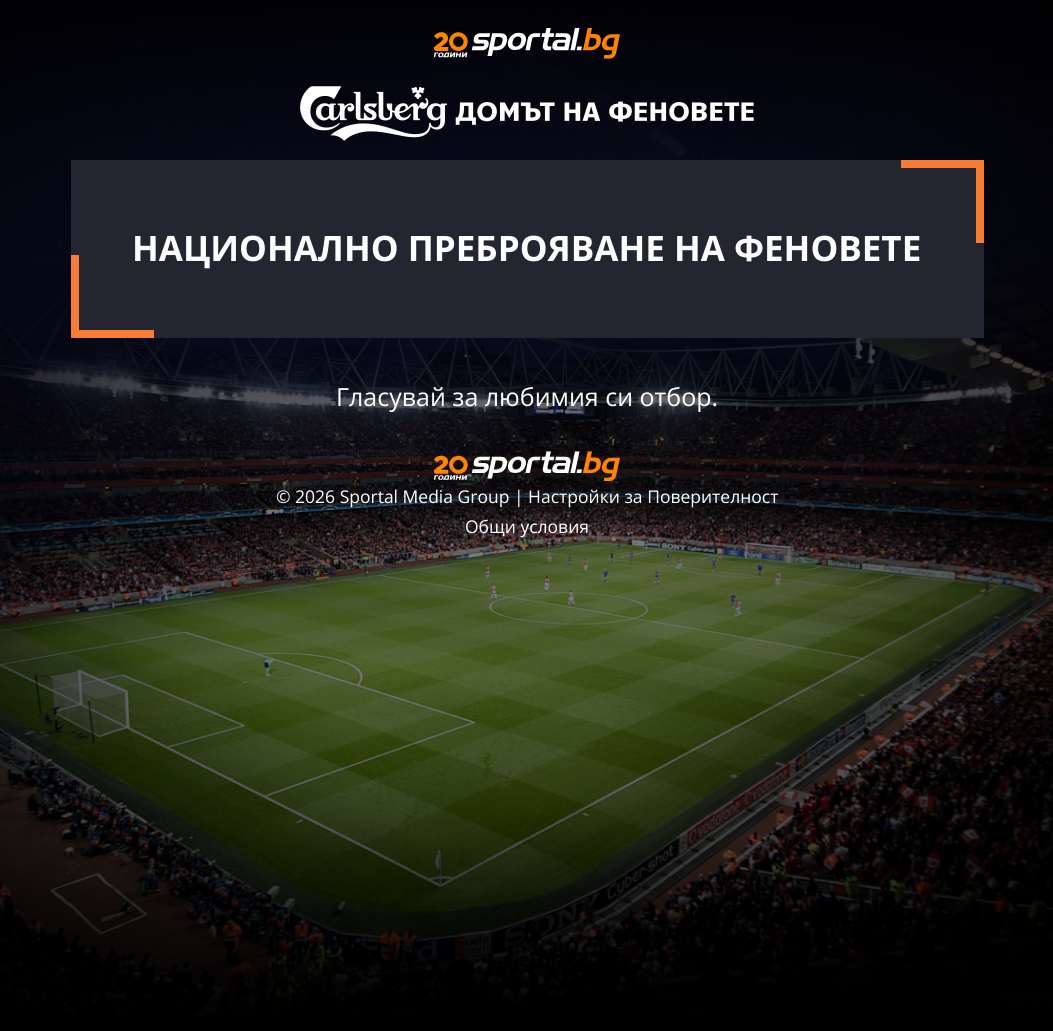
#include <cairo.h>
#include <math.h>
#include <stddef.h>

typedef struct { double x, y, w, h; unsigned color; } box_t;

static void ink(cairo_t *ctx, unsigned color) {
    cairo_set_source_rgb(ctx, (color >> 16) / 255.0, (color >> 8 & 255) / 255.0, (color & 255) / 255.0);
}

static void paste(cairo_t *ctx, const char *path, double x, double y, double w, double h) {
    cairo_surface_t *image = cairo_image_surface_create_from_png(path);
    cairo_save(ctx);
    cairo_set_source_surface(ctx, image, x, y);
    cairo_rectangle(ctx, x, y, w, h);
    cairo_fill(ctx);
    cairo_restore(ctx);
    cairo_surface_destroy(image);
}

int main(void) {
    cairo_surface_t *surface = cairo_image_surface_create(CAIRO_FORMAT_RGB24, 1053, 1031);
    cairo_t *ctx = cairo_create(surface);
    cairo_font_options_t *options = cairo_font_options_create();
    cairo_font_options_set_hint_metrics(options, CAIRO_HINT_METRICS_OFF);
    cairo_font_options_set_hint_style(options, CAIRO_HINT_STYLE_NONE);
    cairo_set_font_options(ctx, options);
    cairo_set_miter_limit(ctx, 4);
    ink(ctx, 0x000000);
    cairo_paint(ctx);
    paste(ctx, "media/1.png", 0, 0, 1053, 1016);
    paste(ctx, "media/2.png", 434, 28, 186, 31);
    paste(ctx, "media/3.png", 300, 86, 454, 55);
    {
        static const box_t items[] = {
            {71, 160, 913, 178, 0x232530},
            {901, 160, 83, 8, 0xF77C36},
            {976, 160, 8, 83, 0xF77C36},
            {71, 330, 83, 8, 0xF77C36},
            {71, 255, 8, 83, 0xF77C36},
        };
        for (size_t i = 0; i < sizeof items / sizeof *items; i++) {
            ink(ctx, items[i].color);
            cairo_rectangle(ctx, items[i].x, items[i].y, items[i].w, items[i].h);
            cairo_fill(ctx);
        }
    }
    cairo_select_font_face(ctx, "Open Sans", CAIRO_FONT_SLANT_NORMAL, CAIRO_FONT_WEIGHT_BOLD);
    cairo_set_font_size(ctx, 35);
    ink(ctx, 0xFFFFFF);
    cairo_move_to(ctx, 132, 261);
    cairo_show_text(ctx, "НАЦИОНАЛНО ПРЕБРОЯВАНЕ НА ФЕНОВЕТЕ");
    cairo_select_font_face(ctx, "Open Sans", CAIRO_FONT_SLANT_NORMAL, CAIRO_FONT_WEIGHT_NORMAL);
    cairo_set_font_size(ctx, 25);
    cairo_move_to(ctx, 336, 406);
    cairo_show_text(ctx, "Гласувай за любимия си отбор.");
    paste(ctx, "media/4.png", 434, 451, 186, 30);
    cairo_set_font_size(ctx, 17.5);
    cairo_move_to(ctx, 276, 503);
    cairo_show_text(ctx, "© 2026 Sportal Media Group | Настройки за Поверителност");
    cairo_move_to(ctx, 465, 533);
    cairo_show_text(ctx, "Общи условия");
    cairo_surface_write_to_png(surface, "image.png");
    cairo_font_options_destroy(options);
    cairo_destroy(ctx);
    cairo_surface_destroy(surface);
    return 0;
}
